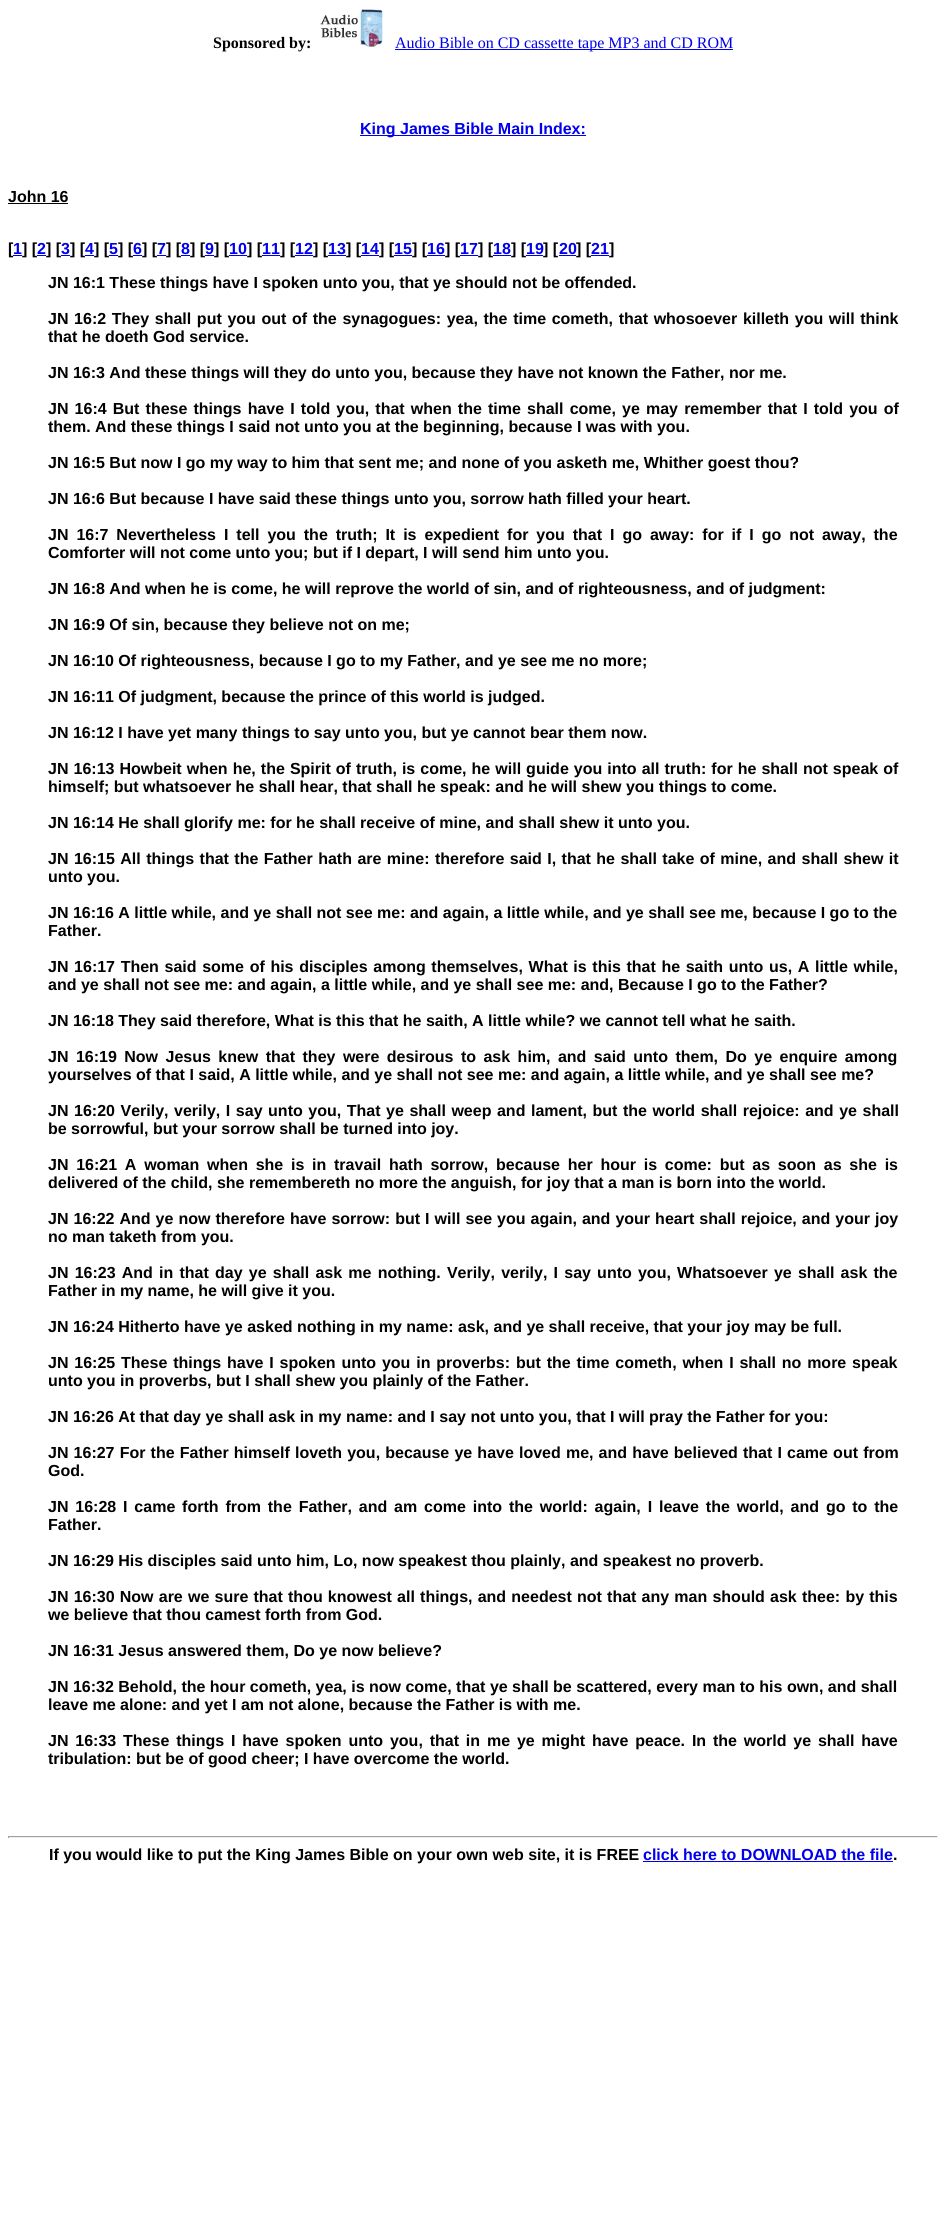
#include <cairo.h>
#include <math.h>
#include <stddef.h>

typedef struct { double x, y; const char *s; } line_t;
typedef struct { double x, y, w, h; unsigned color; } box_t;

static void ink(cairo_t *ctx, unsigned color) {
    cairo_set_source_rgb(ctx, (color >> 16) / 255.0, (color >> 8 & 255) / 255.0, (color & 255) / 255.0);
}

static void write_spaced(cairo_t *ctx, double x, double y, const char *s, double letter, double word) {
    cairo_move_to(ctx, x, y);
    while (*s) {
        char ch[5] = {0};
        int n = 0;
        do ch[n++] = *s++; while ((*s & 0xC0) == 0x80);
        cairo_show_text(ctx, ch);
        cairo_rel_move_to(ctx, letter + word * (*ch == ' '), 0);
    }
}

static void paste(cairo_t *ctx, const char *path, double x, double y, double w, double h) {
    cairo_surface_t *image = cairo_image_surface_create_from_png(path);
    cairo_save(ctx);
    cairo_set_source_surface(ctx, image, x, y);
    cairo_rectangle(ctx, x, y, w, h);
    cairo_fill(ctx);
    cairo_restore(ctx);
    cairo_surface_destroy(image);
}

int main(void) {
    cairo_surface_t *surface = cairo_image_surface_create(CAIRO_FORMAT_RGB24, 946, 2227);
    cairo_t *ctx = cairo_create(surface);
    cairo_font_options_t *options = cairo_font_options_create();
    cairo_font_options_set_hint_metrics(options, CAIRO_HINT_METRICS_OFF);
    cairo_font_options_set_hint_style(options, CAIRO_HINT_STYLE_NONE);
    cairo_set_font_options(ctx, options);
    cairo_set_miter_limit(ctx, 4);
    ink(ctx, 0xFFFFFF);
    cairo_paint(ctx);
    cairo_select_font_face(ctx, "Liberation Serif", CAIRO_FONT_SLANT_NORMAL, CAIRO_FONT_WEIGHT_BOLD);
    cairo_set_font_size(ctx, 16);
    ink(ctx, 0x000000);
    cairo_move_to(ctx, 213, 48);
    cairo_show_text(ctx, "Sponsored by:");
    paste(ctx, "media/1.png", 320, 9, 63, 38);
    ink(ctx, 0x0000EE);
    cairo_rectangle(ctx, 395, 49, 338, 1);
    cairo_fill(ctx);
    cairo_select_font_face(ctx, "Liberation Serif", CAIRO_FONT_SLANT_NORMAL, CAIRO_FONT_WEIGHT_NORMAL);
    cairo_move_to(ctx, 395, 48);
    cairo_show_text(ctx, "Audio Bible on CD cassette tape MP3 and CD ROM");
    cairo_rectangle(ctx, 360, 135, 226, 1);
    cairo_fill(ctx);
    cairo_select_font_face(ctx, "Liberation Sans", CAIRO_FONT_SLANT_NORMAL, CAIRO_FONT_WEIGHT_BOLD);
    cairo_move_to(ctx, 360, 134);
    cairo_show_text(ctx, "King James Bible Main Index:");
    ink(ctx, 0x000000);
    cairo_move_to(ctx, 8, 202);
    cairo_show_text(ctx, "John 16");
    cairo_rectangle(ctx, 8, 203, 60, 1);
    cairo_fill(ctx);
    cairo_move_to(ctx, 8, 254);
    cairo_show_text(ctx, "[");
    ink(ctx, 0x0000EE);
    cairo_rectangle(ctx, 13, 255, 9, 1);
    cairo_fill(ctx);
    cairo_move_to(ctx, 13, 254);
    cairo_show_text(ctx, "1");
    ink(ctx, 0x000000);
    cairo_move_to(ctx, 22, 254);
    cairo_show_text(ctx, "] [");
    ink(ctx, 0x0000EE);
    cairo_rectangle(ctx, 37, 255, 9, 1);
    cairo_fill(ctx);
    cairo_move_to(ctx, 37, 254);
    cairo_show_text(ctx, "2");
    ink(ctx, 0x000000);
    cairo_move_to(ctx, 46, 254);
    cairo_show_text(ctx, "] [");
    ink(ctx, 0x0000EE);
    cairo_rectangle(ctx, 61, 255, 9, 1);
    cairo_fill(ctx);
    cairo_move_to(ctx, 61, 254);
    cairo_show_text(ctx, "3");
    ink(ctx, 0x000000);
    cairo_move_to(ctx, 70, 254);
    cairo_show_text(ctx, "] [");
    ink(ctx, 0x0000EE);
    cairo_rectangle(ctx, 85, 255, 9, 1);
    cairo_fill(ctx);
    cairo_move_to(ctx, 85, 254);
    cairo_show_text(ctx, "4");
    ink(ctx, 0x000000);
    cairo_move_to(ctx, 94, 254);
    cairo_show_text(ctx, "] [");
    ink(ctx, 0x0000EE);
    cairo_rectangle(ctx, 109, 255, 9, 1);
    cairo_fill(ctx);
    cairo_move_to(ctx, 109, 254);
    cairo_show_text(ctx, "5");
    ink(ctx, 0x000000);
    cairo_move_to(ctx, 118, 254);
    cairo_show_text(ctx, "] [");
    ink(ctx, 0x0000EE);
    cairo_rectangle(ctx, 133, 255, 9, 1);
    cairo_fill(ctx);
    cairo_move_to(ctx, 133, 254);
    cairo_show_text(ctx, "6");
    ink(ctx, 0x000000);
    cairo_move_to(ctx, 142, 254);
    cairo_show_text(ctx, "] [");
    ink(ctx, 0x0000EE);
    cairo_rectangle(ctx, 157, 255, 9, 1);
    cairo_fill(ctx);
    cairo_move_to(ctx, 157, 254);
    cairo_show_text(ctx, "7");
    ink(ctx, 0x000000);
    cairo_move_to(ctx, 166, 254);
    cairo_show_text(ctx, "] [");
    ink(ctx, 0x0000EE);
    cairo_rectangle(ctx, 181, 255, 9, 1);
    cairo_fill(ctx);
    cairo_move_to(ctx, 181, 254);
    cairo_show_text(ctx, "8");
    ink(ctx, 0x000000);
    cairo_move_to(ctx, 190, 254);
    cairo_show_text(ctx, "] [");
    ink(ctx, 0x0000EE);
    cairo_rectangle(ctx, 205, 255, 9, 1);
    cairo_fill(ctx);
    cairo_move_to(ctx, 205, 254);
    cairo_show_text(ctx, "9");
    ink(ctx, 0x000000);
    cairo_move_to(ctx, 214, 254);
    cairo_show_text(ctx, "] [");
    ink(ctx, 0x0000EE);
    cairo_rectangle(ctx, 229, 255, 18, 1);
    cairo_fill(ctx);
    cairo_move_to(ctx, 229, 254);
    cairo_show_text(ctx, "10");
    ink(ctx, 0x000000);
    cairo_move_to(ctx, 247, 254);
    cairo_show_text(ctx, "] [");
    ink(ctx, 0x0000EE);
    cairo_rectangle(ctx, 262, 255, 18, 1);
    cairo_fill(ctx);
    cairo_move_to(ctx, 262, 254);
    cairo_show_text(ctx, "11");
    ink(ctx, 0x000000);
    cairo_move_to(ctx, 280, 254);
    cairo_show_text(ctx, "] [");
    ink(ctx, 0x0000EE);
    cairo_rectangle(ctx, 295, 255, 18, 1);
    cairo_fill(ctx);
    cairo_move_to(ctx, 295, 254);
    cairo_show_text(ctx, "12");
    ink(ctx, 0x000000);
    cairo_move_to(ctx, 313, 254);
    cairo_show_text(ctx, "] [");
    ink(ctx, 0x0000EE);
    cairo_rectangle(ctx, 328, 255, 18, 1);
    cairo_fill(ctx);
    cairo_move_to(ctx, 328, 254);
    cairo_show_text(ctx, "13");
    ink(ctx, 0x000000);
    cairo_move_to(ctx, 346, 254);
    cairo_show_text(ctx, "] [");
    ink(ctx, 0x0000EE);
    cairo_rectangle(ctx, 361, 255, 18, 1);
    cairo_fill(ctx);
    cairo_move_to(ctx, 361, 254);
    cairo_show_text(ctx, "14");
    ink(ctx, 0x000000);
    cairo_move_to(ctx, 379, 254);
    cairo_show_text(ctx, "] [");
    ink(ctx, 0x0000EE);
    cairo_rectangle(ctx, 394, 255, 18, 1);
    cairo_fill(ctx);
    cairo_move_to(ctx, 394, 254);
    cairo_show_text(ctx, "15");
    ink(ctx, 0x000000);
    cairo_move_to(ctx, 412, 254);
    cairo_show_text(ctx, "] [");
    ink(ctx, 0x0000EE);
    cairo_rectangle(ctx, 427, 255, 18, 1);
    cairo_fill(ctx);
    cairo_move_to(ctx, 427, 254);
    cairo_show_text(ctx, "16");
    ink(ctx, 0x000000);
    cairo_move_to(ctx, 445, 254);
    cairo_show_text(ctx, "] [");
    ink(ctx, 0x0000EE);
    cairo_rectangle(ctx, 460, 255, 18, 1);
    cairo_fill(ctx);
    cairo_move_to(ctx, 460, 254);
    cairo_show_text(ctx, "17");
    ink(ctx, 0x000000);
    cairo_move_to(ctx, 478, 254);
    cairo_show_text(ctx, "] [");
    ink(ctx, 0x0000EE);
    cairo_rectangle(ctx, 493, 255, 18, 1);
    cairo_fill(ctx);
    cairo_move_to(ctx, 493, 254);
    cairo_show_text(ctx, "18");
    ink(ctx, 0x000000);
    cairo_move_to(ctx, 511, 254);
    cairo_show_text(ctx, "] [");
    ink(ctx, 0x0000EE);
    cairo_rectangle(ctx, 526, 255, 17, 1);
    cairo_fill(ctx);
    cairo_move_to(ctx, 526, 254);
    cairo_show_text(ctx, "19");
    ink(ctx, 0x000000);
    cairo_move_to(ctx, 543, 254);
    cairo_show_text(ctx, "] [");
    ink(ctx, 0x0000EE);
    cairo_rectangle(ctx, 559, 255, 17, 1);
    cairo_fill(ctx);
    cairo_move_to(ctx, 559, 254);
    cairo_show_text(ctx, "20");
    ink(ctx, 0x000000);
    cairo_move_to(ctx, 576, 254);
    cairo_show_text(ctx, "] [");
    ink(ctx, 0x0000EE);
    cairo_rectangle(ctx, 591, 255, 18, 1);
    cairo_fill(ctx);
    cairo_move_to(ctx, 591, 254);
    cairo_show_text(ctx, "21");
    ink(ctx, 0x000000);
    cairo_move_to(ctx, 609, 254);
    cairo_show_text(ctx, "]");
    cairo_move_to(ctx, 48, 288);
    cairo_show_text(ctx, "JN 16:1 These things have I spoken unto you, that ye should not be offended.");
    write_spaced(ctx, 48, 324, "JN 16:2 They shall put you out of the synagogues: yea, the time cometh, that whosoever killeth you will think", 0, 1.2);
    cairo_move_to(ctx, 48, 342);
    cairo_show_text(ctx, "that he doeth God service.");
    cairo_move_to(ctx, 48, 378);
    cairo_show_text(ctx, "JN 16:3 And these things will they do unto you, because they have not known the Father, nor me.");
    write_spaced(ctx, 48, 414, "JN 16:4 But these things have I told you, that when the time shall come, ye may remember that I told you of", 0, 1.7);
    {
        static const line_t items[] = {
            {48, 432, "them. And these things I said not unto you at the beginning, because I was with you."},
            {48, 468, "JN 16:5 But now I go my way to him that sent me; and none of you asketh me, Whither goest thou?"},
            {48, 504, "JN 16:6 But because I have said these things unto you, sorrow hath filled your heart."},
        };
        for (size_t i = 0; i < sizeof items / sizeof *items; i++) {
            cairo_move_to(ctx, items[i].x, items[i].y);
            cairo_show_text(ctx, items[i].s);
        }
    }
    write_spaced(ctx, 48, 540, "JN 16:7 Nevertheless I tell you the truth; It is expedient for you that I go away: for if I go not away, the", 0, 3.5);
    {
        static const line_t items[] = {
            {48, 558, "Comforter will not come unto you; but if I depart, I will send him unto you."},
            {48, 594, "JN 16:8 And when he is come, he will reprove the world of sin, and of righteousness, and of judgment:"},
            {48, 630, "JN 16:9 Of sin, because they believe not on me;"},
            {48, 666, "JN 16:10 Of righteousness, because I go to my Father, and ye see me no more;"},
            {48, 702, "JN 16:11 Of judgment, because the prince of this world is judged."},
            {48, 738, "JN 16:12 I have yet many things to say unto you, but ye cannot bear them now."},
        };
        for (size_t i = 0; i < sizeof items / sizeof *items; i++) {
            cairo_move_to(ctx, items[i].x, items[i].y);
            cairo_show_text(ctx, items[i].s);
        }
    }
    write_spaced(ctx, 48, 774, "JN 16:13 Howbeit when he, the Spirit of truth, is come, he will guide you into all truth: for he shall not speak of", 0, 0.6);
    cairo_move_to(ctx, 48, 792);
    cairo_show_text(ctx, "himself; but whatsoever he shall hear, that shall he speak: and he will shew you things to come.");
    cairo_move_to(ctx, 48, 828);
    cairo_show_text(ctx, "JN 16:14 He shall glorify me: for he shall receive of mine, and shall shew it unto you.");
    write_spaced(ctx, 48, 864, "JN 16:15 All things that the Father hath are mine: therefore said I, that he shall take of mine, and shall shew it", 0, 1);
    {
        static const line_t items[] = {
            {48, 882, "unto you."},
            {48, 918, "JN 16:16 A little while, and ye shall not see me: and again, a little while, and ye shall see me, because I go to the"},
            {48, 936, "Father."},
        };
        for (size_t i = 0; i < sizeof items / sizeof *items; i++) {
            cairo_move_to(ctx, items[i].x, items[i].y);
            cairo_show_text(ctx, items[i].s);
        }
    }
    write_spaced(ctx, 48, 972, "JN 16:17 Then said some of his disciples among themselves, What is this that he saith unto us, A little while,", 0, 1.2);
    cairo_move_to(ctx, 48, 990);
    cairo_show_text(ctx, "and ye shall not see me: and again, a little while, and ye shall see me: and, Because I go to the Father?");
    cairo_move_to(ctx, 48, 1026);
    cairo_show_text(ctx, "JN 16:18 They said therefore, What is this that he saith, A little while? we cannot tell what he saith.");
    write_spaced(ctx, 48, 1062, "JN 16:19 Now Jesus knew that they were desirous to ask him, and said unto them, Do ye enquire among", 0, 3);
    cairo_move_to(ctx, 48, 1080);
    cairo_show_text(ctx, "yourselves of that I said, A little while, and ye shall not see me: and again, a little while, and ye shall see me?");
    write_spaced(ctx, 48, 1116, "JN 16:20 Verily, verily, I say unto you, That ye shall weep and lament, but the world shall rejoice: and ye shall", 0, 1.1);
    cairo_move_to(ctx, 48, 1134);
    cairo_show_text(ctx, "be sorrowful, but your sorrow shall be turned into joy.");
    write_spaced(ctx, 48, 1170, "JN 16:21 A woman when she is in travail hath sorrow, because her hour is come: but as soon as she is", 0, 3.3);
    cairo_move_to(ctx, 48, 1188);
    cairo_show_text(ctx, "delivered of the child, she remembereth no more the anguish, for joy that a man is born into the world.");
    write_spaced(ctx, 48, 1224, "JN 16:22 And ye now therefore have sorrow: but I will see you again, and your heart shall rejoice, and your joy", 0, 0.6);
    cairo_move_to(ctx, 48, 1242);
    cairo_show_text(ctx, "no man taketh from you.");
    write_spaced(ctx, 48, 1278, "JN 16:23 And in that day ye shall ask me nothing. Verily, verily, I say unto you, Whatsoever ye shall ask the", 0, 1.75);
    cairo_move_to(ctx, 48, 1296);
    cairo_show_text(ctx, "Father in my name, he will give it you.");
    cairo_move_to(ctx, 48, 1332);
    cairo_show_text(ctx, "JN 16:24 Hitherto have ye asked nothing in my name: ask, and ye shall receive, that your joy may be full.");
    write_spaced(ctx, 48, 1368, "JN 16:25 These things have I spoken unto you in proverbs: but the time cometh, when I shall no more speak", 0, 1.4);
    cairo_move_to(ctx, 48, 1386);
    cairo_show_text(ctx, "unto you in proverbs, but I shall shew you plainly of the Father.");
    cairo_move_to(ctx, 48, 1422);
    cairo_show_text(ctx, "JN 16:26 At that day ye shall ask in my name: and I say not unto you, that I will pray the Father for you:");
    write_spaced(ctx, 48, 1458, "JN 16:27 For the Father himself loveth you, because ye have loved me, and have believed that I came out from", 0, 0.7);
    cairo_move_to(ctx, 48, 1476);
    cairo_show_text(ctx, "God.");
    write_spaced(ctx, 48, 1512, "JN 16:28 I came forth from the Father, and am come into the world: again, I leave the world, and go to the", 0, 2.4);
    cairo_move_to(ctx, 48, 1530);
    cairo_show_text(ctx, "Father.");
    cairo_move_to(ctx, 48, 1566);
    cairo_show_text(ctx, "JN 16:29 His disciples said unto him, Lo, now speakest thou plainly, and speakest no proverb.");
    write_spaced(ctx, 48, 1602, "JN 16:30 Now are we sure that thou knowest all things, and needest not that any man should ask thee: by this", 0, 0.75);
    {
        static const line_t items[] = {
            {48, 1620, "we believe that thou camest forth from God."},
            {48, 1656, "JN 16:31 Jesus answered them, Do ye now believe?"},
            {48, 1692, "JN 16:32 Behold, the hour cometh, yea, is now come, that ye shall be scattered, every man to his own, and shall"},
            {48, 1710, "leave me alone: and yet I am not alone, because the Father is with me."},
        };
        for (size_t i = 0; i < sizeof items / sizeof *items; i++) {
            cairo_move_to(ctx, items[i].x, items[i].y);
            cairo_show_text(ctx, items[i].s);
        }
    }
    write_spaced(ctx, 48, 1746, "JN 16:33 These things I have spoken unto you, that in me ye might have peace. In the world ye shall have", 0, 2.4);
    cairo_move_to(ctx, 48, 1764);
    cairo_show_text(ctx, "tribulation: but be of good cheer; I have overcome the world.");
    {
        static const box_t items[] = {
            {8, 1836, 930, 1, 0x9F9F9F},
            {937, 1836, 1, 2, 0xEEEEEE},
            {8, 1837, 930, 1, 0xEEEEEE},
            {8, 1836, 1, 2, 0x9F9F9F},
        };
        for (size_t i = 0; i < sizeof items / sizeof *items; i++) {
            ink(ctx, items[i].color);
            cairo_rectangle(ctx, items[i].x, items[i].y, items[i].w, items[i].h);
            cairo_fill(ctx);
        }
    }
    ink(ctx, 0x000000);
    cairo_move_to(ctx, 49, 1860);
    cairo_show_text(ctx, "If you would like to put the King James Bible on your own web site, it is FREE");
    ink(ctx, 0x0000EE);
    cairo_move_to(ctx, 643, 1860);
    cairo_show_text(ctx, "click here to DOWNLOAD the file");
    ink(ctx, 0x000000);
    cairo_move_to(ctx, 893, 1860);
    cairo_show_text(ctx, ".");
    ink(ctx, 0x0000EE);
    cairo_rectangle(ctx, 643, 1861, 250, 1);
    cairo_fill(ctx);
    cairo_surface_write_to_png(surface, "image.png");
    cairo_font_options_destroy(options);
    cairo_destroy(ctx);
    cairo_surface_destroy(surface);
    return 0;
}
